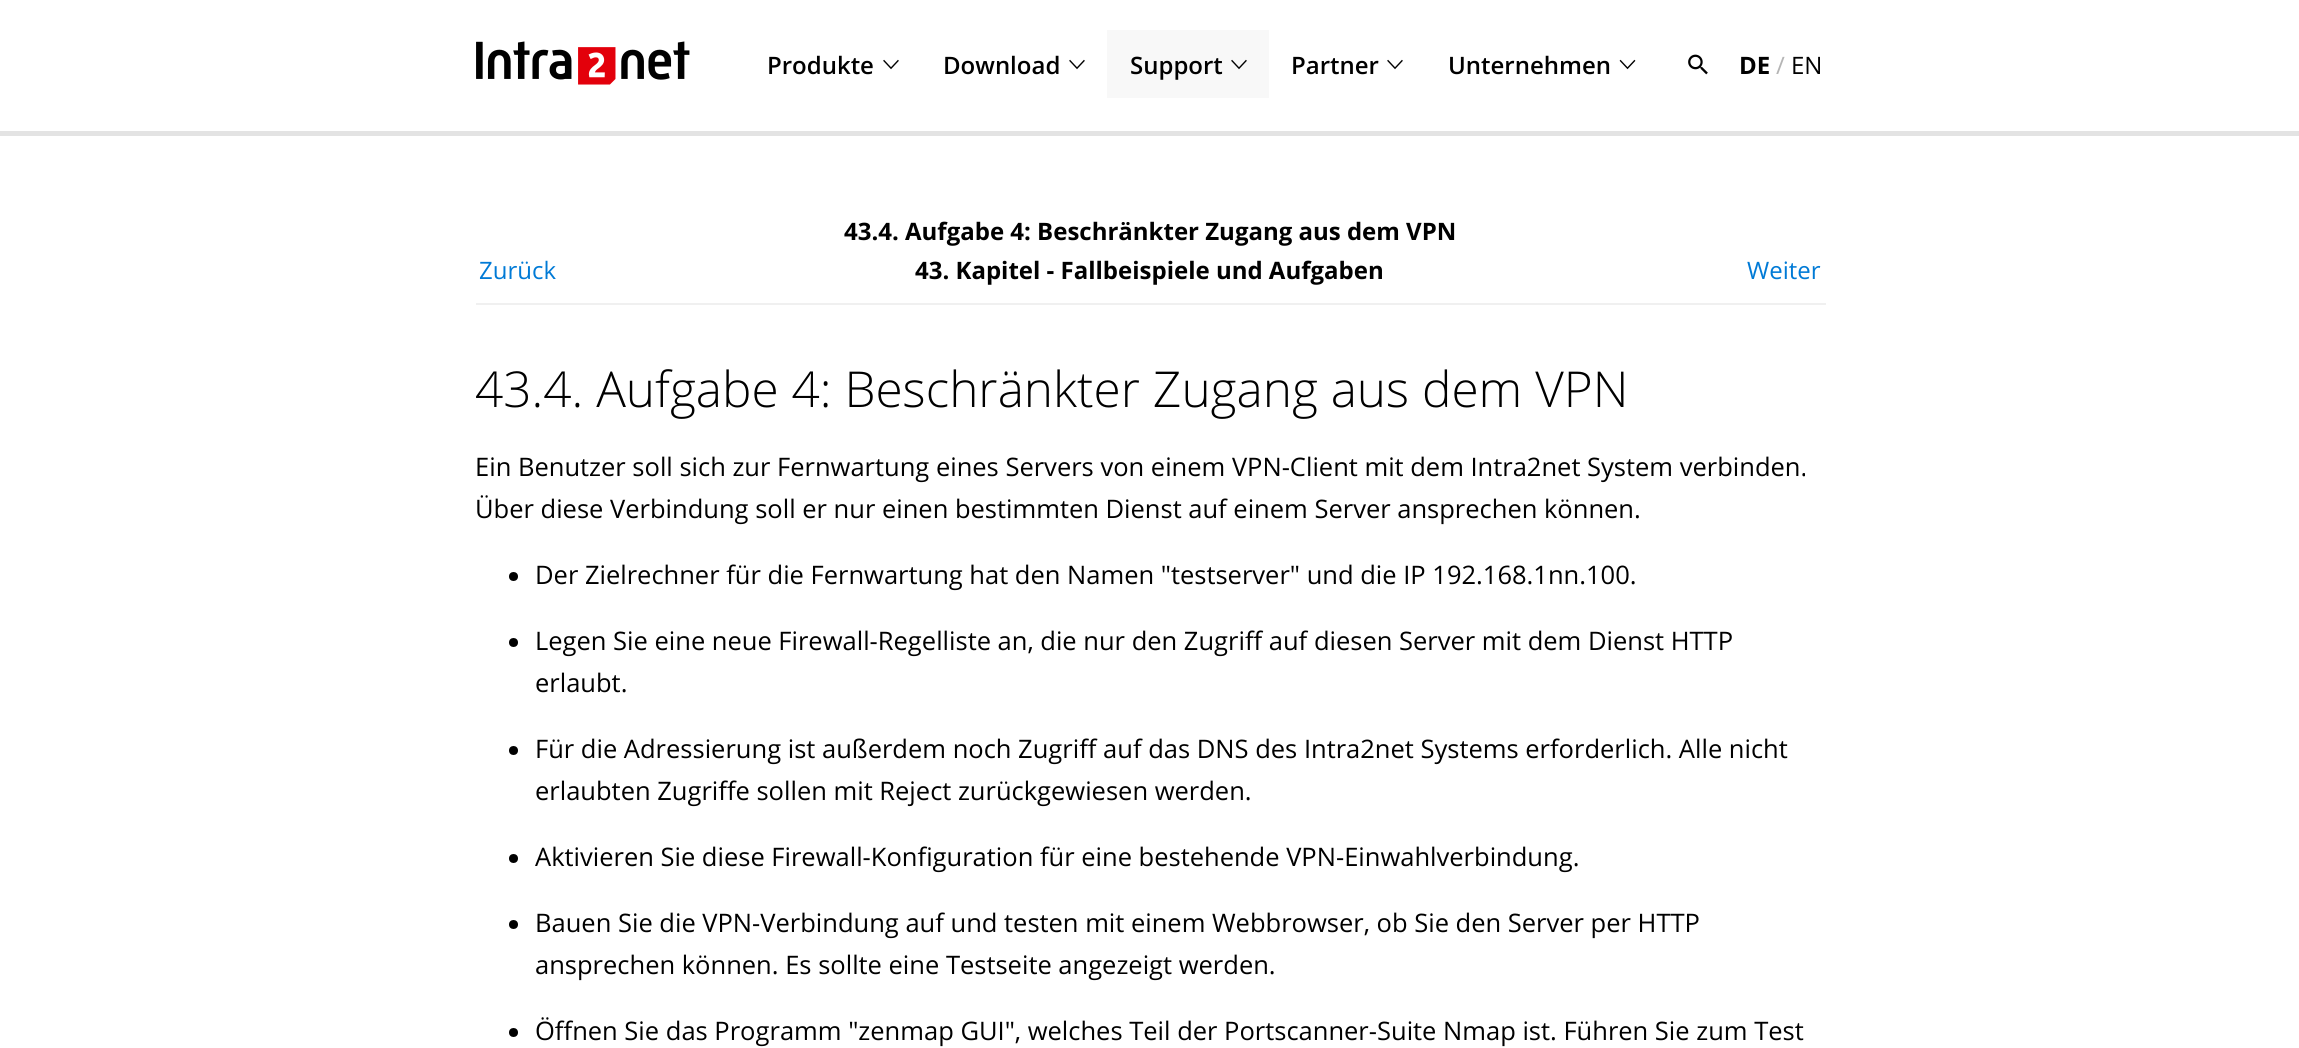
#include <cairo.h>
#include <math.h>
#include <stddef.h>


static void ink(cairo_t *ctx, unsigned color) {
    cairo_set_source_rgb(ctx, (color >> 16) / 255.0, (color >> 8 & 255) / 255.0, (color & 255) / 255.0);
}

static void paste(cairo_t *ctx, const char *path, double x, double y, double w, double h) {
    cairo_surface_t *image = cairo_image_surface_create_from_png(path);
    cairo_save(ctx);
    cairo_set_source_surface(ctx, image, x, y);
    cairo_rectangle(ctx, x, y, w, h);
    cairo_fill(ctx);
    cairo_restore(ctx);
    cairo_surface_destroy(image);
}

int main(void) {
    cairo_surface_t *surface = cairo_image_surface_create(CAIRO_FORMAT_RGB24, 2299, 1048);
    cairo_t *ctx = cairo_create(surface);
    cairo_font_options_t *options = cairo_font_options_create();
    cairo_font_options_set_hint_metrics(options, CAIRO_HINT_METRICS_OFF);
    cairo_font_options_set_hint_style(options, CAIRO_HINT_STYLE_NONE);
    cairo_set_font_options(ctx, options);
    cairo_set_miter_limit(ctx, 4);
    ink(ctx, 0xFFFFFF);
    cairo_paint(ctx);
    paste(ctx, "media/1.png", 476, 41, 214, 44);
    cairo_select_font_face(ctx, "Open Sans SemiBold", CAIRO_FONT_SLANT_NORMAL, CAIRO_FONT_WEIGHT_NORMAL);
    cairo_set_font_size(ctx, 24);
    ink(ctx, 0x000000);
    cairo_move_to(ctx, 767, 74);
    cairo_show_text(ctx, "Produkte");
    paste(ctx, "media/2.png", 883, 59, 16, 11);
    cairo_move_to(ctx, 943, 74);
    cairo_show_text(ctx, "Download");
    paste(ctx, "media/2.png", 1069, 59, 16, 11);
    ink(ctx, 0xF8F8F8);
    cairo_rectangle(ctx, 1107, 30, 162, 68);
    cairo_fill(ctx);
    ink(ctx, 0x000000);
    cairo_move_to(ctx, 1130, 74);
    cairo_show_text(ctx, "Support");
    paste(ctx, "media/3.png", 1231, 59, 16, 11);
    cairo_move_to(ctx, 1291, 74);
    cairo_show_text(ctx, "Partner");
    paste(ctx, "media/2.png", 1387, 59, 16, 11);
    cairo_move_to(ctx, 1448, 74);
    cairo_show_text(ctx, "Unternehmen");
    paste(ctx, "media/4.png", 1619, 59, 17, 11);
    paste(ctx, "media/5.png", 1688, 54, 20, 21);
    cairo_select_font_face(ctx, "Open Sans", CAIRO_FONT_SLANT_NORMAL, CAIRO_FONT_WEIGHT_BOLD);
    cairo_move_to(ctx, 1739, 74);
    cairo_show_text(ctx, "DE");
    cairo_select_font_face(ctx, "Open Sans", CAIRO_FONT_SLANT_NORMAL, CAIRO_FONT_WEIGHT_NORMAL);
    ink(ctx, 0xB5B5B5);
    cairo_move_to(ctx, 1776, 74);
    cairo_show_text(ctx, "/");
    ink(ctx, 0x000000);
    cairo_move_to(ctx, 1791, 74);
    cairo_show_text(ctx, "EN");
    ink(ctx, 0xE3E3E3);
    cairo_rectangle(ctx, 0, 131, 2299, 5);
    cairo_fill(ctx);
    cairo_select_font_face(ctx, "Open Sans", CAIRO_FONT_SLANT_NORMAL, CAIRO_FONT_WEIGHT_BOLD);
    ink(ctx, 0x000000);
    cairo_move_to(ctx, 844, 240);
    cairo_show_text(ctx, "43.4. Aufgabe 4: Beschränkter Zugang aus dem VPN");
    cairo_select_font_face(ctx, "Open Sans", CAIRO_FONT_SLANT_NORMAL, CAIRO_FONT_WEIGHT_NORMAL);
    ink(ctx, 0x007AD6);
    cairo_move_to(ctx, 479, 279);
    cairo_show_text(ctx, "Zurück");
    cairo_select_font_face(ctx, "Open Sans", CAIRO_FONT_SLANT_NORMAL, CAIRO_FONT_WEIGHT_BOLD);
    ink(ctx, 0x000000);
    cairo_move_to(ctx, 915, 279);
    cairo_show_text(ctx, "43. Kapitel - Fallbeispiele und Aufgaben");
    cairo_select_font_face(ctx, "Open Sans", CAIRO_FONT_SLANT_NORMAL, CAIRO_FONT_WEIGHT_NORMAL);
    ink(ctx, 0x007AD6);
    cairo_move_to(ctx, 1747, 279);
    cairo_show_text(ctx, "Weiter");
    ink(ctx, 0xF0F0F0);
    cairo_rectangle(ctx, 476, 303, 1350, 2);
    cairo_fill(ctx);
    cairo_select_font_face(ctx, "Open Sans Light", CAIRO_FONT_SLANT_NORMAL, CAIRO_FONT_WEIGHT_NORMAL);
    cairo_set_font_size(ctx, 49.5);
    ink(ctx, 0x000000);
    cairo_move_to(ctx, 475, 407);
    cairo_show_text(ctx, "43.4. Aufgabe 4: Beschränkter Zugang aus dem VPN");
    cairo_select_font_face(ctx, "Open Sans", CAIRO_FONT_SLANT_NORMAL, CAIRO_FONT_WEIGHT_NORMAL);
    cairo_set_font_size(ctx, 25.5);
    cairo_move_to(ctx, 475, 476);
    cairo_show_text(ctx, "Ein Benutzer soll sich zur Fernwartung eines Servers von einem VPN-Client mit dem Intra2net System verbinden.");
    cairo_move_to(ctx, 475, 518);
    cairo_show_text(ctx, "Über diese Verbindung soll er nur einen bestimmten Dienst auf einem Server ansprechen können.");
    cairo_new_path(ctx);
    cairo_arc(ctx, 513.5, 576.5, 4.5, 0, 2 * M_PI);
    cairo_fill(ctx);
    cairo_move_to(ctx, 535, 584);
    cairo_show_text(ctx, "Der Zielrechner für die Fernwartung hat den Namen \"testserver\" und die IP 192.168.1nn.100.");
    cairo_new_path(ctx);
    cairo_arc(ctx, 513.5, 642.5, 4.5, 0, 2 * M_PI);
    cairo_fill(ctx);
    cairo_move_to(ctx, 535, 650);
    cairo_show_text(ctx, "Legen Sie eine neue Firewall-Regelliste an, die nur den Zugriff auf diesen Server mit dem Dienst HTTP");
    cairo_move_to(ctx, 535, 692);
    cairo_show_text(ctx, "erlaubt.");
    cairo_new_path(ctx);
    cairo_arc(ctx, 513.5, 750.5, 4.5, 0, 2 * M_PI);
    cairo_fill(ctx);
    cairo_move_to(ctx, 535, 758);
    cairo_show_text(ctx, "Für die Adressierung ist außerdem noch Zugriff auf das DNS des Intra2net Systems erforderlich. Alle nicht");
    cairo_move_to(ctx, 535, 800);
    cairo_show_text(ctx, "erlaubten Zugriffe sollen mit Reject zurückgewiesen werden.");
    cairo_new_path(ctx);
    cairo_arc(ctx, 513.5, 858.5, 4.5, 0, 2 * M_PI);
    cairo_fill(ctx);
    cairo_move_to(ctx, 535, 866);
    cairo_show_text(ctx, "Aktivieren Sie diese Firewall-Konfiguration für eine bestehende VPN-Einwahlverbindung.");
    cairo_new_path(ctx);
    cairo_arc(ctx, 513.5, 924.5, 4.5, 0, 2 * M_PI);
    cairo_fill(ctx);
    cairo_move_to(ctx, 535, 932);
    cairo_show_text(ctx, "Bauen Sie die VPN-Verbindung auf und testen mit einem Webbrowser, ob Sie den Server per HTTP");
    cairo_move_to(ctx, 535, 974);
    cairo_show_text(ctx, "ansprechen können. Es sollte eine Testseite angezeigt werden.");
    cairo_new_path(ctx);
    cairo_arc(ctx, 513.5, 1032.5, 4.5, 0, 2 * M_PI);
    cairo_fill(ctx);
    cairo_move_to(ctx, 535, 1040);
    cairo_show_text(ctx, "Öffnen Sie das Programm \"zenmap GUI\", welches Teil der Portscanner-Suite Nmap ist. Führen Sie zum Test");
    cairo_surface_write_to_png(surface, "image.png");
    cairo_font_options_destroy(options);
    cairo_destroy(ctx);
    cairo_surface_destroy(surface);
    return 0;
}
